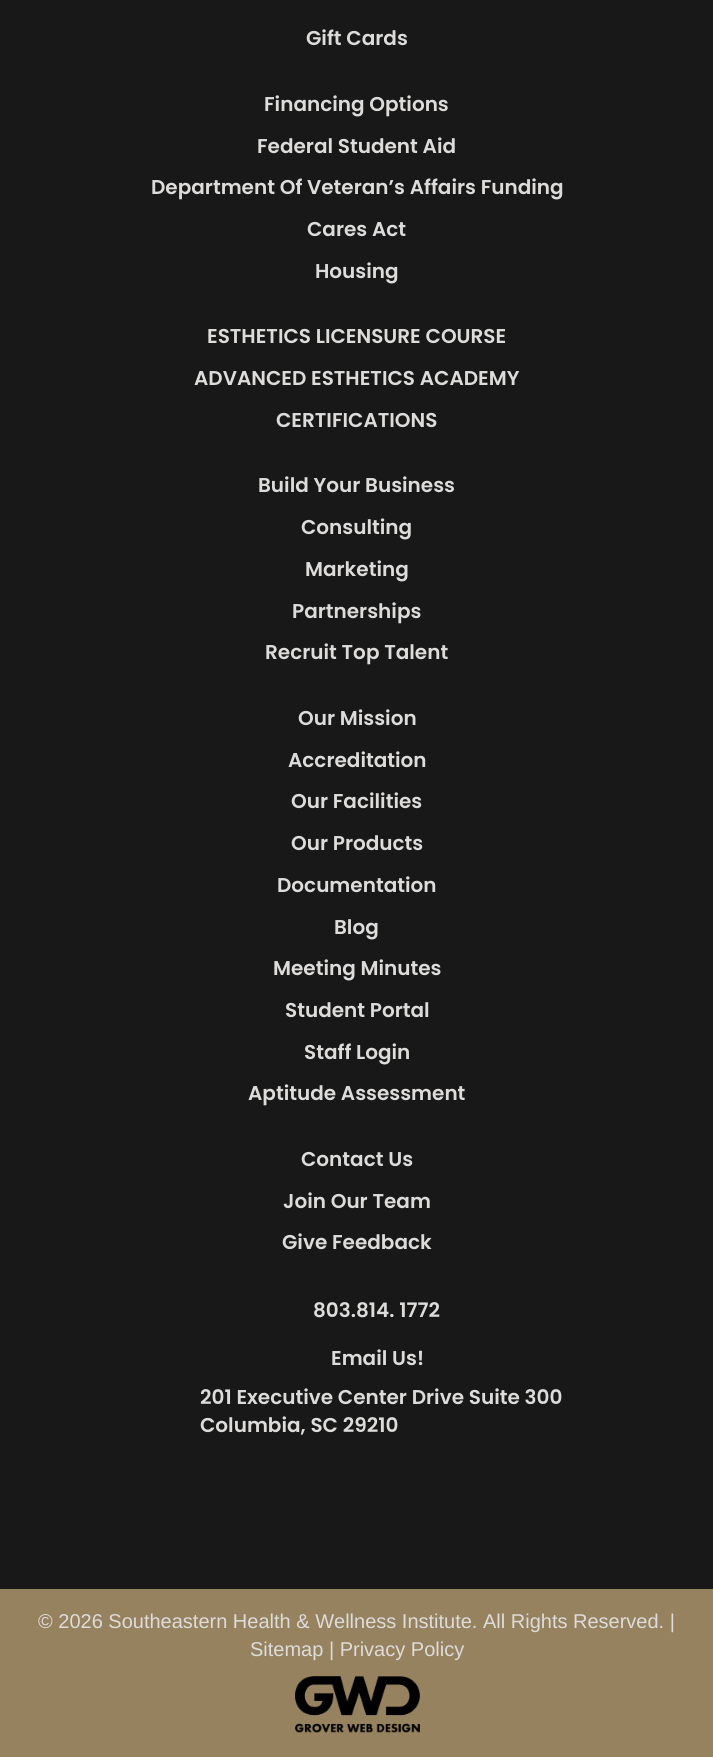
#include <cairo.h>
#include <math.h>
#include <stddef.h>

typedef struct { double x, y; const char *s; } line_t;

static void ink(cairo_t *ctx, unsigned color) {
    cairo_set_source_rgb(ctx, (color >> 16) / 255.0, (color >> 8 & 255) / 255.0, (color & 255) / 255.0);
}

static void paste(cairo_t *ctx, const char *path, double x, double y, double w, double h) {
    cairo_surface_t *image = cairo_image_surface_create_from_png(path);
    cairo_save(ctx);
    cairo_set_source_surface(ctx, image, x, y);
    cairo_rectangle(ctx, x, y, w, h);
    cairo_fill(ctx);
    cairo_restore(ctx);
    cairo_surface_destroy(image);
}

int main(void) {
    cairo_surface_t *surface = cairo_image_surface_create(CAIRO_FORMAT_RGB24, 713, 1757);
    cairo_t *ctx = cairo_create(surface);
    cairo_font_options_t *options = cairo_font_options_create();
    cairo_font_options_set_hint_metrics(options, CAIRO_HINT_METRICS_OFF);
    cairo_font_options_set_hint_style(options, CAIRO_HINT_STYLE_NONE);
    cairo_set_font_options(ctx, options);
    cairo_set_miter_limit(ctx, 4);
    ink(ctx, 0x181818);
    cairo_paint(ctx);
    cairo_select_font_face(ctx, "Poppins SemiBold", CAIRO_FONT_SLANT_NORMAL, CAIRO_FONT_WEIGHT_NORMAL);
    cairo_set_font_size(ctx, 20);
    ink(ctx, 0xDDDCDB);
    {
        static const line_t items[] = {
            {306, 45, "Gift Cards"},
            {264, 111, "Financing Options"},
            {257, 153, "Federal Student Aid"},
            {151, 194, "Department Of Veteran’s Affairs Funding"},
            {307, 236, "Cares Act"},
            {315, 278, "Housing"},
            {207, 343, "ESTHETICS LICENSURE COURSE"},
            {194, 385, "ADVANCED ESTHETICS ACADEMY"},
            {276, 427, "CERTIFICATIONS"},
            {258, 492, "Build Your Business"},
            {301, 534, "Consulting"},
            {305, 576, "Marketing"},
            {292, 618, "Partnerships"},
            {265, 659, "Recruit Top Talent"},
            {298, 725, "Our Mission"},
            {288, 767, "Accreditation"},
            {291, 808, "Our Facilities"},
            {291, 850, "Our Products"},
            {277, 892, "Documentation"},
            {334, 934, "Blog"},
            {273, 975, "Meeting Minutes"},
            {285, 1017, "Student Portal"},
            {304, 1059, "Staff Login"},
            {248, 1100, "Aptitude Assessment"},
            {301, 1166, "Contact Us"},
            {283, 1208, "Join Our Team"},
            {282, 1249, "Give Feedback"},
            {313, 1317, "803.814. 1772"},
            {331, 1365, "Email Us!"},
            {200, 1404, "201 Executive Center Drive Suite 300"},
            {200, 1432, "Columbia, SC 29210"},
        };
        for (size_t i = 0; i < sizeof items / sizeof *items; i++) {
            cairo_move_to(ctx, items[i].x, items[i].y);
            cairo_show_text(ctx, items[i].s);
        }
    }
    ink(ctx, 0x96825F);
    cairo_rectangle(ctx, 0, 1589, 713, 168);
    cairo_fill(ctx);
    cairo_select_font_face(ctx, "Liberation Sans", CAIRO_FONT_SLANT_NORMAL, CAIRO_FONT_WEIGHT_NORMAL);
    ink(ctx, 0xDDDCDB);
    cairo_move_to(ctx, 38, 1628);
    cairo_show_text(ctx, "© 2026 Southeastern Health & Wellness Institute. All Rights Reserved. |");
    cairo_move_to(ctx, 250, 1656);
    cairo_show_text(ctx, "Sitemap | Privacy Policy");
    paste(ctx, "media/1.png", 295, 1676, 125, 57);
    cairo_surface_write_to_png(surface, "image.png");
    cairo_font_options_destroy(options);
    cairo_destroy(ctx);
    cairo_surface_destroy(surface);
    return 0;
}
